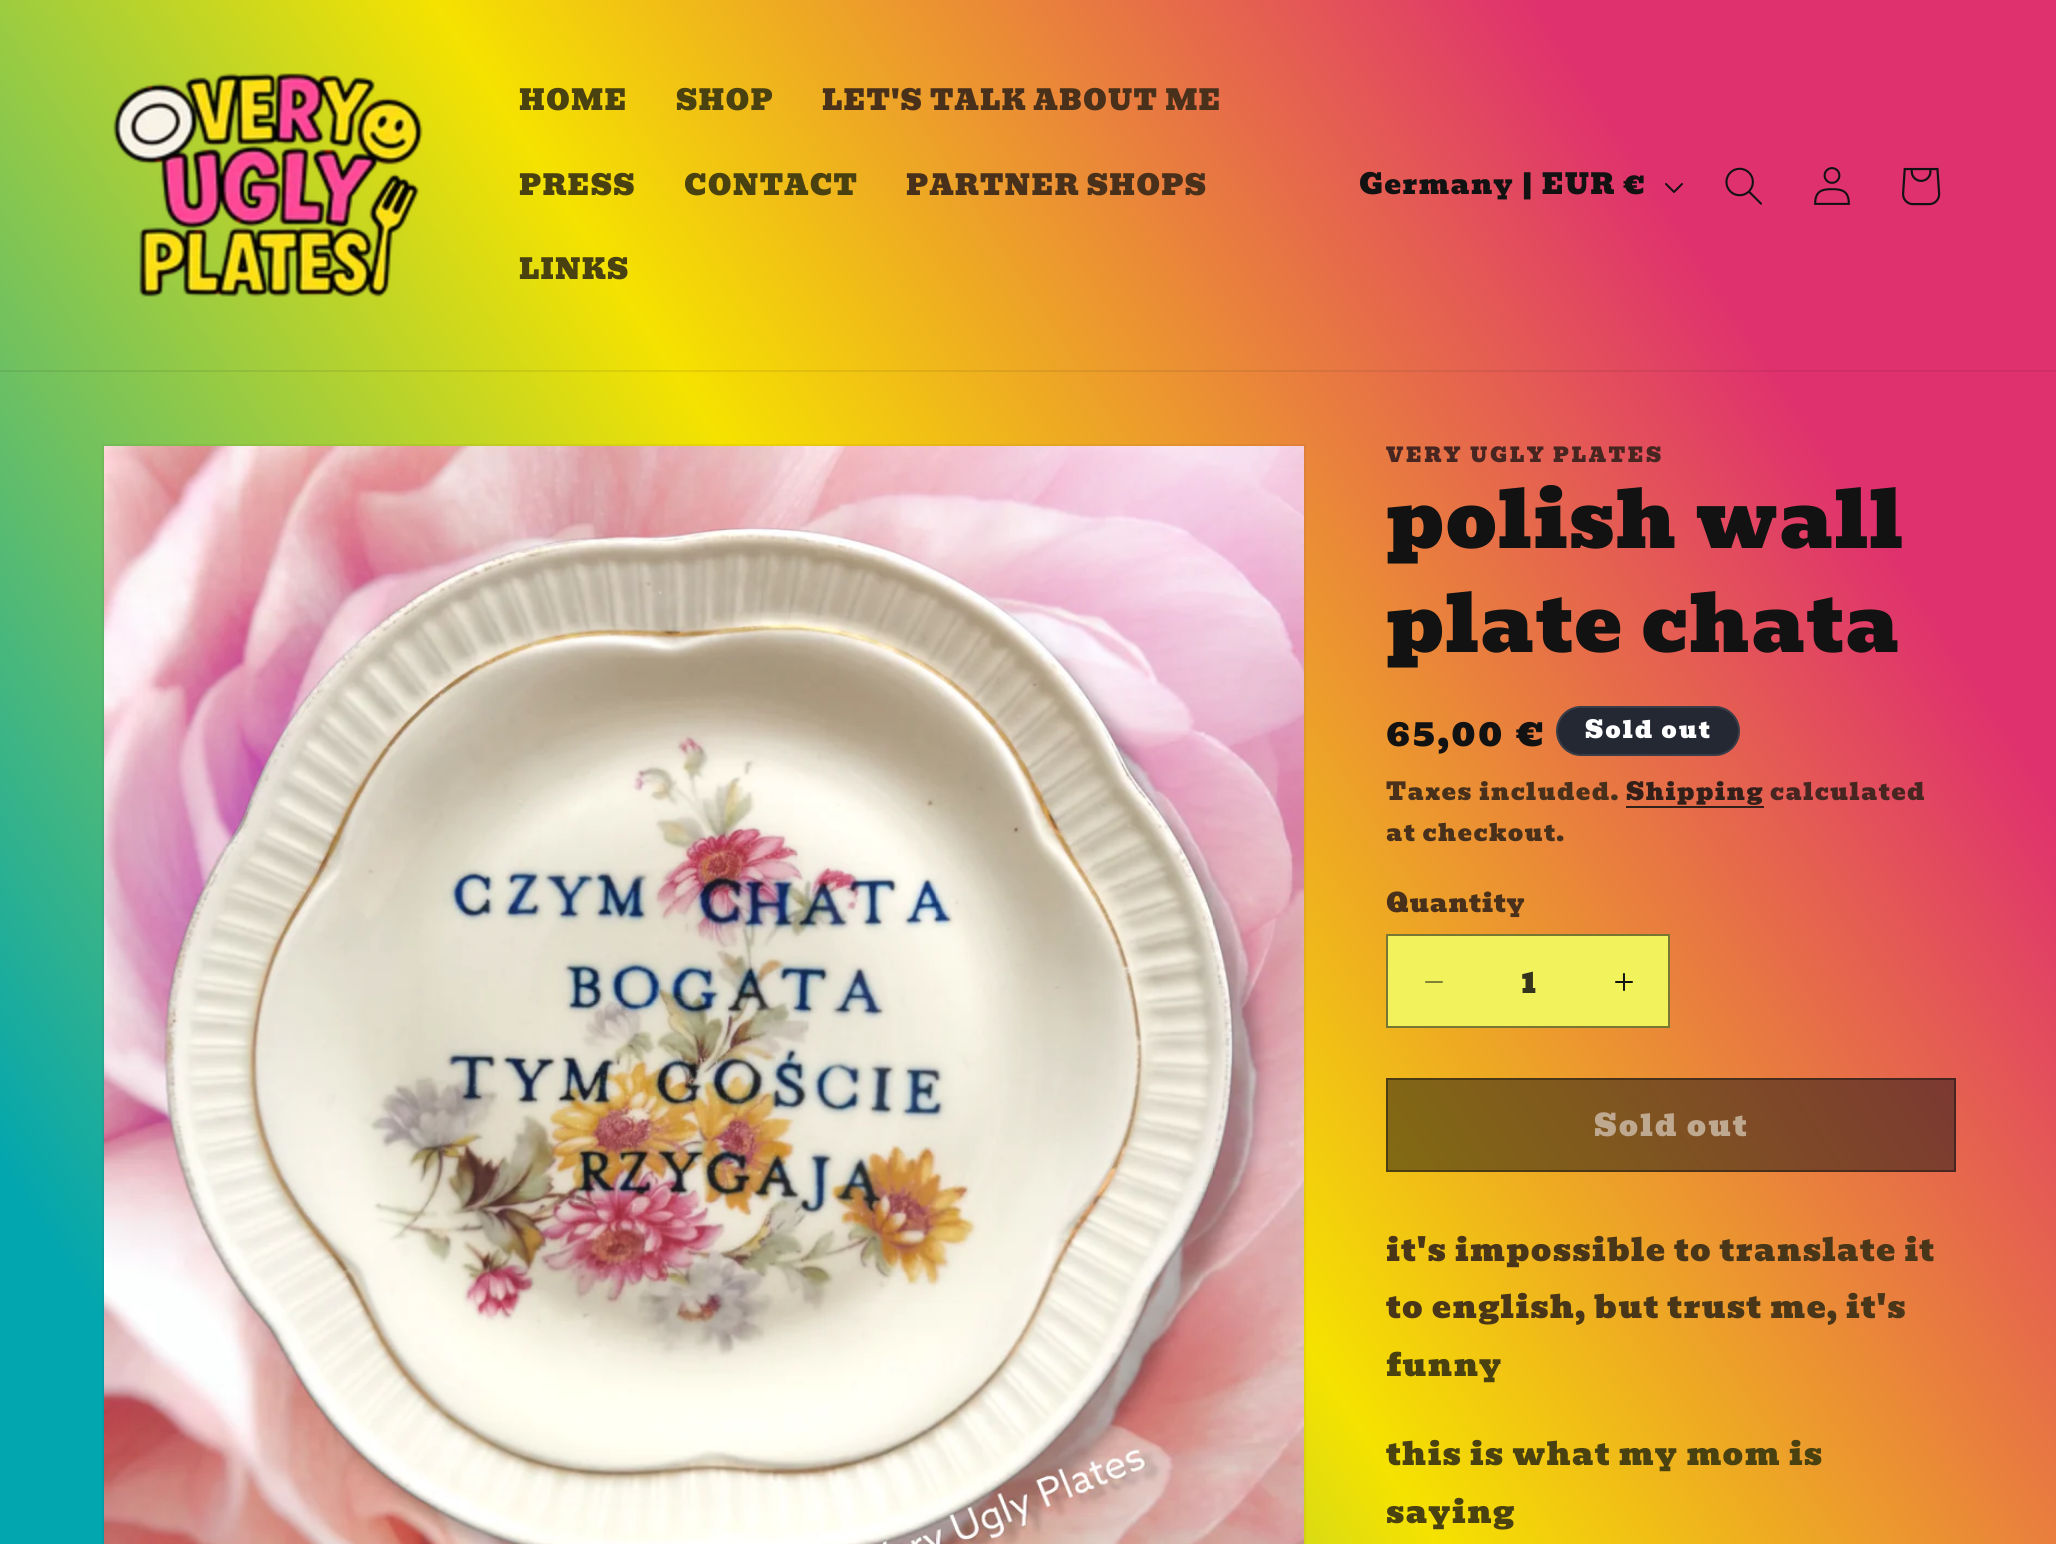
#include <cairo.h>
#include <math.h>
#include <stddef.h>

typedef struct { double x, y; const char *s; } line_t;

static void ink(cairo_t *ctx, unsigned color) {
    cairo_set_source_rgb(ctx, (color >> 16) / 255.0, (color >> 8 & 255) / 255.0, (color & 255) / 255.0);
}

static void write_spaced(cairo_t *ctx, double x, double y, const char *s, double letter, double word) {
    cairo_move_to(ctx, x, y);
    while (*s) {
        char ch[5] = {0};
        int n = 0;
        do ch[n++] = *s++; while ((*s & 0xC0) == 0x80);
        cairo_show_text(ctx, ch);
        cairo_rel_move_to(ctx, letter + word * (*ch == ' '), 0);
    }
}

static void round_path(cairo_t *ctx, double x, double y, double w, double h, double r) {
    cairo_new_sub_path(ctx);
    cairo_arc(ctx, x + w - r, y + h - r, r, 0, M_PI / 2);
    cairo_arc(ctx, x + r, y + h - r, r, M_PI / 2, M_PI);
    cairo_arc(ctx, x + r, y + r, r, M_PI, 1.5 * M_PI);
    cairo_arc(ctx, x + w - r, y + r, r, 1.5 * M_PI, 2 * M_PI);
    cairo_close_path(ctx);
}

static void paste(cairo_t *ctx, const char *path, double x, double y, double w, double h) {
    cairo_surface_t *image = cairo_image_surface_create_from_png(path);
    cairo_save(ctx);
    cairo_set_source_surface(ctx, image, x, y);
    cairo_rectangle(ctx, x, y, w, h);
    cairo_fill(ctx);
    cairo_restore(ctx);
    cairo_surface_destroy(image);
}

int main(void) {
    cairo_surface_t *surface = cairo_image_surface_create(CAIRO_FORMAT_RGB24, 2056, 1544);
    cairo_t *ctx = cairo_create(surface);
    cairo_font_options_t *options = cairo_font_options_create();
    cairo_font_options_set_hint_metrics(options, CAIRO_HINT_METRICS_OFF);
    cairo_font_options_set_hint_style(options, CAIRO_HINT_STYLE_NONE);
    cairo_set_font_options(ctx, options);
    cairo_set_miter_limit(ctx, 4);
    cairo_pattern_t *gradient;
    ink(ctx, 0xFFFFFF);
    cairo_paint(ctx);
    gradient = cairo_pattern_create_linear(-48, 1471, 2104, 73);
    cairo_pattern_add_color_stop_rgba(gradient, 0.08, 0.008, 0.651, 0.686, 1);
    cairo_pattern_add_color_stop_rgba(gradient, 0.47, 0.961, 0.886, 0, 1);
    cairo_pattern_add_color_stop_rgba(gradient, 0.83, 0.875, 0.192, 0.431, 1);
    cairo_set_source(ctx, gradient);
    cairo_pattern_destroy(gradient);
    cairo_rectangle(ctx, 0, 0, 2056, 1544);
    cairo_fill(ctx);
    gradient = cairo_pattern_create_linear(-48, 1471, 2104, 73);
    cairo_pattern_add_color_stop_rgba(gradient, 0.08, 0.012, 0.604, 0.635, 1);
    cairo_pattern_add_color_stop_rgba(gradient, 0.47, 0.89, 0.82, 0.004, 1);
    cairo_pattern_add_color_stop_rgba(gradient, 0.83, 0.812, 0.184, 0.404, 1);
    cairo_set_source(ctx, gradient);
    cairo_pattern_destroy(gradient);
    cairo_rectangle(ctx, 0, 370, 2056, 2);
    cairo_fill(ctx);
    gradient = cairo_pattern_create_linear(-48, 1471, 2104, 73);
    cairo_pattern_add_color_stop_rgba(gradient, 0.08, 0.039, 0.361, 0.38, 1);
    cairo_pattern_add_color_stop_rgba(gradient, 0.47, 0.518, 0.478, 0.035, 1);
    cairo_pattern_add_color_stop_rgba(gradient, 0.83, 0.475, 0.133, 0.251, 1);
    cairo_set_source(ctx, gradient);
    cairo_pattern_destroy(gradient);
    cairo_rectangle(ctx, 1386, 1078, 570, 94);
    cairo_fill(ctx);
    gradient = cairo_pattern_create_linear(-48, 1471, 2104, 73);
    cairo_pattern_add_color_stop_rgba(gradient, 0.08, 0.063, 0.157, 0.165, 1);
    cairo_pattern_add_color_stop_rgba(gradient, 0.47, 0.204, 0.192, 0.059, 1);
    cairo_pattern_add_color_stop_rgba(gradient, 0.83, 0.192, 0.09, 0.125, 1);
    cairo_set_source(ctx, gradient);
    cairo_pattern_destroy(gradient);
    cairo_rectangle(ctx, 1626, 806, 138, 2);
    cairo_fill(ctx);
    paste(ctx, "media/1.png", 113, 73, 310, 224);
    cairo_select_font_face(ctx, "Bevan", CAIRO_FONT_SLANT_NORMAL, CAIRO_FONT_WEIGHT_NORMAL);
    cairo_set_font_size(ctx, 28);
    ink(ctx, 0x4A4110);
    write_spaced(ctx, 519, 110, "HOME", 1.2, 0);
    write_spaced(ctx, 676, 110, "SHOP", 1.2, 0);
    ink(ctx, 0x48301B);
    write_spaced(ctx, 822, 110, "LET'S TALK ABOUT ME", 1.2, 0);
    ink(ctx, 0x4A4110);
    write_spaced(ctx, 519, 195, "PRESS", 1.2, 0);
    write_spaced(ctx, 684, 195, "CONTACT", 1.2, 0);
    ink(ctx, 0x48301B);
    write_spaced(ctx, 906, 195, "PARTNER SHOPS", 1.2, 0);
    ink(ctx, 0x4A4110);
    write_spaced(ctx, 519, 279, "LINKS", 1.2, 0);
    ink(ctx, 0x121212);
    write_spaced(ctx, 1359, 194, "Germany | EUR €", 1.2, 0);
    paste(ctx, "media/2.png", 1665, 183, 18, 10);
    paste(ctx, "media/3.png", 1725, 167, 37, 38);
    paste(ctx, "media/4.png", 1814, 167, 36, 38);
    paste(ctx, "media/5.png", 1902, 167, 39, 39);
    cairo_rectangle(ctx, 103, 445, 1202, 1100);
    cairo_set_source_rgba(ctx, 0.071, 0.071, 0.071, 0.05);
    cairo_stroke(ctx);
    paste(ctx, "media/6.png", 104, 446, 1200, 1098);
    cairo_set_font_size(ctx, 20);
    ink(ctx, 0x472621);
    write_spaced(ctx, 1386, 462, "VERY UGLY PLATES", 2.6, 0);
    cairo_set_font_size(ctx, 80);
    ink(ctx, 0x121212);
    write_spaced(ctx, 1386, 548, "polish wall", 1.2, 0);
    write_spaced(ctx, 1386, 652, "plate chata", 1.2, 0);
    cairo_set_font_size(ctx, 36);
    write_spaced(ctx, 1386, 746, "65,00 €", 2.6, 0);
    ink(ctx, 0x242833);
    round_path(ctx, 1556, 706, 184, 50, 25);
    cairo_fill(ctx);
    round_path(ctx, 1557, 707, 182, 48, 24);
    cairo_set_source_rgba(ctx, 1, 1, 1, 0.1);
    cairo_stroke(ctx);
    cairo_set_font_size(ctx, 24);
    ink(ctx, 0xFFFFFF);
    write_spaced(ctx, 1585, 738, "Sold out", 2, 0);
    ink(ctx, 0x48301B);
    write_spaced(ctx, 1386, 800, "Taxes included.", 1.4, 0);
    ink(ctx, 0x321F1A);
    write_spaced(ctx, 1626, 800, "Shipping", 1.4, 0);
    ink(ctx, 0x472621);
    write_spaced(ctx, 1770, 800, "calculated", 1.4, 0);
    ink(ctx, 0x48301B);
    write_spaced(ctx, 1386, 841, "at checkout.", 1.4, 0);
    cairo_set_font_size(ctx, 26);
    write_spaced(ctx, 1386, 912, "Quantity", 0.75, 0);
    ink(ctx, 0xF2F25C);
    cairo_rectangle(ctx, 1388, 936, 280, 90);
    cairo_fill(ctx);
    paste(ctx, "media/7.png", 1425, 981, 18, 2);
    paste(ctx, "media/8.png", 1615, 973, 18, 18);
    cairo_rectangle(ctx, 1387, 935, 282, 92);
    ink(ctx, 0x777733);
    cairo_stroke(ctx);
    cairo_set_font_size(ctx, 32);
    ink(ctx, 0x34341D);
    cairo_move_to(ctx, 1521, 993);
    cairo_show_text(ctx, "1");
    cairo_rectangle(ctx, 1387, 1079, 568, 92);
    cairo_set_source_rgba(ctx, 0.071, 0.071, 0.071, 0.5);
    cairo_stroke(ctx);
    cairo_set_font_size(ctx, 30);
    ink(ctx, 0xBFA890);
    write_spaced(ctx, 1594, 1136, "Sold out", 2, 0);
    cairo_set_font_size(ctx, 32);
    ink(ctx, 0x493618);
    write_spaced(ctx, 1386, 1261, "it's impossible to translate it", 1.2, 0);
    write_spaced(ctx, 1386, 1318, "to english, but trust me, it's", 1.2, 0);
    ink(ctx, 0x4A4110);
    {
        static const line_t items[] = {
            {1386, 1376, "funny"},
            {1386, 1465, "this is what my mom is"},
            {1386, 1523, "saying"},
        };
        for (size_t i = 0; i < sizeof items / sizeof *items; i++) {
            write_spaced(ctx, items[i].x, items[i].y, items[i].s, 1.2, 0);
        }
    }
    cairo_surface_write_to_png(surface, "image.png");
    cairo_font_options_destroy(options);
    cairo_destroy(ctx);
    cairo_surface_destroy(surface);
    return 0;
}
